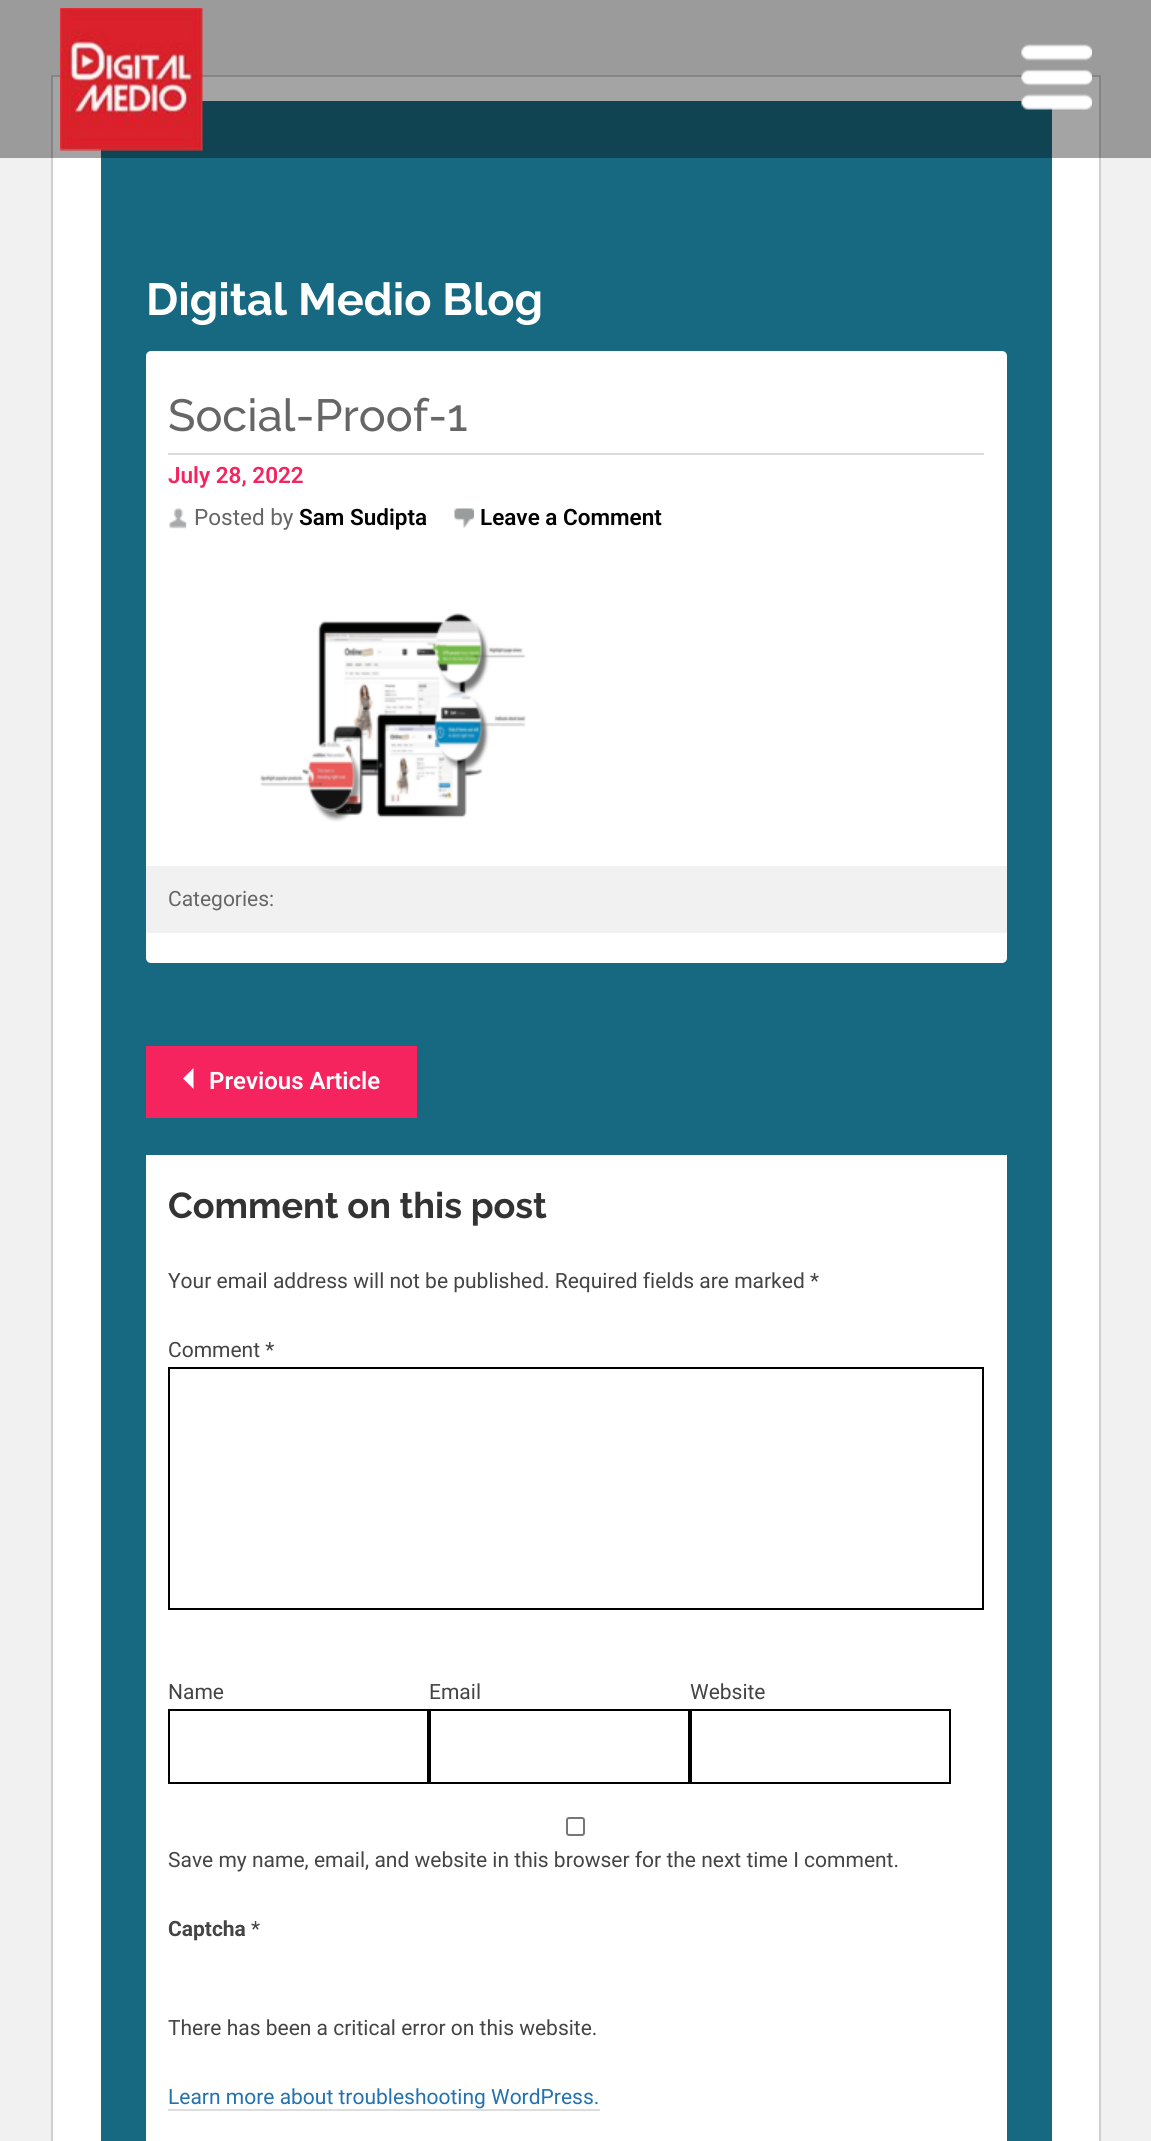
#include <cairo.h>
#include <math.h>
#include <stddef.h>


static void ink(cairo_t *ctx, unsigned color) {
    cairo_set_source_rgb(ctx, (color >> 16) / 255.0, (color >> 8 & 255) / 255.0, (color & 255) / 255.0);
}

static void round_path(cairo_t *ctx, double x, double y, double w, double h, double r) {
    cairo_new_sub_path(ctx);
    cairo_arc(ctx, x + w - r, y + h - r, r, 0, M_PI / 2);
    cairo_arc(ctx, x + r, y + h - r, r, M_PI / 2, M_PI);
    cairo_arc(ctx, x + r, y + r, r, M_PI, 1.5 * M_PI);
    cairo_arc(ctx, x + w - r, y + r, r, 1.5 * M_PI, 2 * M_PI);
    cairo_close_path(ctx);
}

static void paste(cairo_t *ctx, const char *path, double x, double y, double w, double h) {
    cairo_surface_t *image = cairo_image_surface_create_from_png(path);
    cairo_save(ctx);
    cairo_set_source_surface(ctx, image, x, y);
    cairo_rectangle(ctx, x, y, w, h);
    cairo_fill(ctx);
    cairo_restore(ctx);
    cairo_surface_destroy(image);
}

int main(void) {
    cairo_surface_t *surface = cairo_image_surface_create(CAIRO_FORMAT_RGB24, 1151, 2141);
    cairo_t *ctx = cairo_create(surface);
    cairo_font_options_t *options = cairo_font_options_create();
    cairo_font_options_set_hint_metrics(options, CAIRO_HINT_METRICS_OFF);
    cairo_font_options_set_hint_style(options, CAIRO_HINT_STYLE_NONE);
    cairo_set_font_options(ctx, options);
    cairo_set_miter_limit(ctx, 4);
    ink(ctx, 0xF1F1F1);
    cairo_paint(ctx);
    ink(ctx, 0xFFFFFF);
    cairo_rectangle(ctx, 52, 76, 1048, 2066);
    cairo_fill_preserve(ctx);
    ink(ctx, 0xCCD0D4);
    cairo_stroke(ctx);
    ink(ctx, 0x176981);
    cairo_rectangle(ctx, 101, 101, 951, 2040);
    cairo_fill(ctx);
    cairo_set_source_rgba(ctx, 0.02, 0.02, 0.02, 0.36);
    cairo_rectangle(ctx, 0, 0, 1151, 158);
    cairo_fill(ctx);
    paste(ctx, "media/1.png", 60, 8, 143, 143);
    paste(ctx, "media/2.png", 1021, 44, 71, 66);
    cairo_select_font_face(ctx, "Raleway", CAIRO_FONT_SLANT_NORMAL, CAIRO_FONT_WEIGHT_BOLD);
    cairo_set_font_size(ctx, 45);
    ink(ctx, 0xFFFFFF);
    cairo_move_to(ctx, 146, 315);
    cairo_show_text(ctx, "Digital Medio Blog");
    round_path(ctx, 146, 351, 861, 612, 5);
    cairo_fill(ctx);
    ink(ctx, 0xDADADA);
    cairo_rectangle(ctx, 168, 453, 816, 2);
    cairo_fill(ctx);
    cairo_select_font_face(ctx, "Raleway Medium", CAIRO_FONT_SLANT_NORMAL, CAIRO_FONT_WEIGHT_NORMAL);
    ink(ctx, 0x666666);
    cairo_move_to(ctx, 168, 431);
    cairo_show_text(ctx, "Social-Proof-1");
    cairo_select_font_face(ctx, "Roboto SemiBold", CAIRO_FONT_SLANT_NORMAL, CAIRO_FONT_WEIGHT_NORMAL);
    cairo_set_font_size(ctx, 22.5);
    ink(ctx, 0xF5245F);
    cairo_move_to(ctx, 168, 483);
    cairo_show_text(ctx, "July 28, 2022");
    paste(ctx, "media/3.png", 169, 508, 18, 21);
    cairo_select_font_face(ctx, "Roboto", CAIRO_FONT_SLANT_NORMAL, CAIRO_FONT_WEIGHT_NORMAL);
    ink(ctx, 0x666666);
    cairo_move_to(ctx, 194, 525);
    cairo_show_text(ctx, "Posted by");
    cairo_select_font_face(ctx, "Roboto SemiBold", CAIRO_FONT_SLANT_NORMAL, CAIRO_FONT_WEIGHT_NORMAL);
    ink(ctx, 0x000000);
    cairo_move_to(ctx, 299, 525);
    cairo_show_text(ctx, "Sam Sudipta");
    paste(ctx, "media/4.png", 454, 508, 20, 21);
    cairo_move_to(ctx, 480, 525);
    cairo_show_text(ctx, "Leave a Comment");
    paste(ctx, "media/5.png", 259, 613, 267, 209);
    ink(ctx, 0xF1F1F1);
    cairo_rectangle(ctx, 146, 866, 861, 67);
    cairo_fill(ctx);
    cairo_select_font_face(ctx, "Roboto", CAIRO_FONT_SLANT_NORMAL, CAIRO_FONT_WEIGHT_NORMAL);
    cairo_set_font_size(ctx, 21);
    ink(ctx, 0x666666);
    cairo_move_to(ctx, 168, 906);
    cairo_show_text(ctx, "Categories:");
    ink(ctx, 0xF5245F);
    cairo_rectangle(ctx, 146, 1046, 271, 72);
    cairo_fill(ctx);
    ink(ctx, 0xFFFFFF);
    cairo_new_path(ctx);
    cairo_move_to(ctx, 193.5, 1068);
    cairo_line_to(ctx, 193.5, 1089);
    cairo_line_to(ctx, 183, 1078.5);
    cairo_close_path(ctx);
    cairo_fill(ctx);
    cairo_select_font_face(ctx, "Roboto SemiBold", CAIRO_FONT_SLANT_NORMAL, CAIRO_FONT_WEIGHT_NORMAL);
    cairo_set_font_size(ctx, 24);
    cairo_move_to(ctx, 209, 1089);
    cairo_show_text(ctx, "Previous Article");
    cairo_rectangle(ctx, 146, 1155, 861, 986);
    cairo_fill(ctx);
    cairo_select_font_face(ctx, "Raleway", CAIRO_FONT_SLANT_NORMAL, CAIRO_FONT_WEIGHT_BOLD);
    cairo_set_font_size(ctx, 36);
    ink(ctx, 0x333333);
    cairo_move_to(ctx, 168, 1218);
    cairo_show_text(ctx, "Comment on this post");
    cairo_select_font_face(ctx, "Roboto", CAIRO_FONT_SLANT_NORMAL, CAIRO_FONT_WEIGHT_NORMAL);
    cairo_set_font_size(ctx, 21);
    ink(ctx, 0x444444);
    cairo_move_to(ctx, 168, 1288);
    cairo_show_text(ctx, "Your email address will not be published. Required fields are marked *");
    cairo_move_to(ctx, 168, 1357);
    cairo_show_text(ctx, "Comment *");
    cairo_rectangle(ctx, 169, 1368, 814, 241);
    ink(ctx, 0x000000);
    cairo_stroke(ctx);
    ink(ctx, 0x444444);
    cairo_move_to(ctx, 168, 1699);
    cairo_show_text(ctx, "Name");
    cairo_rectangle(ctx, 169, 1710, 259, 73);
    ink(ctx, 0x000000);
    cairo_stroke(ctx);
    ink(ctx, 0x444444);
    cairo_move_to(ctx, 429, 1699);
    cairo_show_text(ctx, "Email");
    cairo_rectangle(ctx, 430, 1710, 259, 73);
    ink(ctx, 0x000000);
    cairo_stroke(ctx);
    ink(ctx, 0x444444);
    cairo_move_to(ctx, 690, 1699);
    cairo_show_text(ctx, "Website");
    cairo_rectangle(ctx, 691, 1710, 259, 73);
    ink(ctx, 0x000000);
    cairo_stroke(ctx);
    round_path(ctx, 567, 1818, 17, 17, 2);
    ink(ctx, 0x767676);
    cairo_stroke(ctx);
    ink(ctx, 0x444444);
    cairo_move_to(ctx, 168, 1867);
    cairo_show_text(ctx, "Save my name, email, and website in this browser for the next time I comment.");
    cairo_select_font_face(ctx, "Roboto", CAIRO_FONT_SLANT_NORMAL, CAIRO_FONT_WEIGHT_BOLD);
    cairo_move_to(ctx, 168, 1936);
    cairo_show_text(ctx, "Captcha");
    cairo_select_font_face(ctx, "Roboto", CAIRO_FONT_SLANT_NORMAL, CAIRO_FONT_WEIGHT_NORMAL);
    cairo_move_to(ctx, 251, 1936);
    cairo_show_text(ctx, "*");
    cairo_move_to(ctx, 168, 2035);
    cairo_show_text(ctx, "There has been a critical error on this website.");
    ink(ctx, 0x2271B1);
    cairo_move_to(ctx, 168, 2104);
    cairo_show_text(ctx, "Learn more about troubleshooting WordPress.");
    ink(ctx, 0xDDDDDD);
    cairo_rectangle(ctx, 168, 2109, 432, 2);
    cairo_fill(ctx);
    cairo_surface_write_to_png(surface, "image.png");
    cairo_font_options_destroy(options);
    cairo_destroy(ctx);
    cairo_surface_destroy(surface);
    return 0;
}
